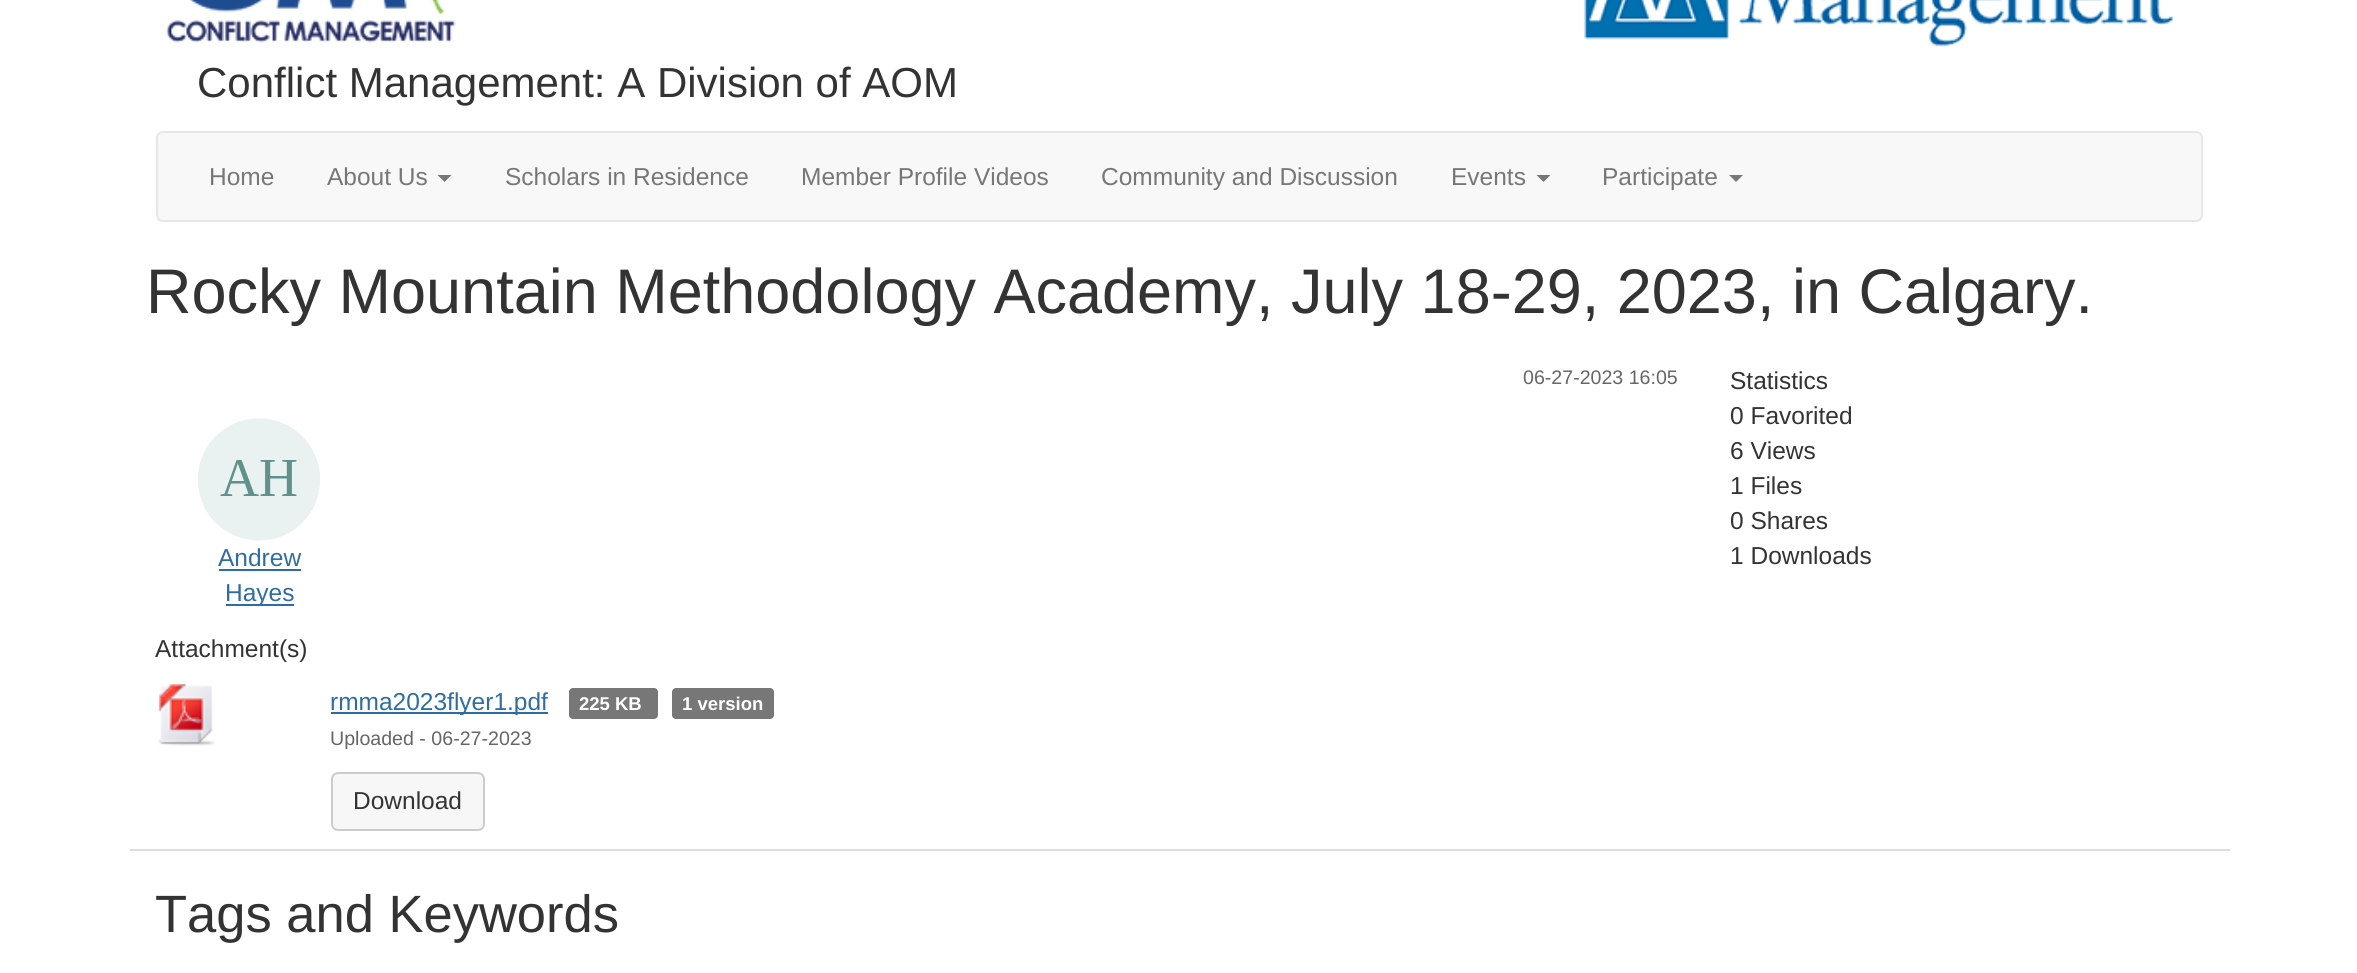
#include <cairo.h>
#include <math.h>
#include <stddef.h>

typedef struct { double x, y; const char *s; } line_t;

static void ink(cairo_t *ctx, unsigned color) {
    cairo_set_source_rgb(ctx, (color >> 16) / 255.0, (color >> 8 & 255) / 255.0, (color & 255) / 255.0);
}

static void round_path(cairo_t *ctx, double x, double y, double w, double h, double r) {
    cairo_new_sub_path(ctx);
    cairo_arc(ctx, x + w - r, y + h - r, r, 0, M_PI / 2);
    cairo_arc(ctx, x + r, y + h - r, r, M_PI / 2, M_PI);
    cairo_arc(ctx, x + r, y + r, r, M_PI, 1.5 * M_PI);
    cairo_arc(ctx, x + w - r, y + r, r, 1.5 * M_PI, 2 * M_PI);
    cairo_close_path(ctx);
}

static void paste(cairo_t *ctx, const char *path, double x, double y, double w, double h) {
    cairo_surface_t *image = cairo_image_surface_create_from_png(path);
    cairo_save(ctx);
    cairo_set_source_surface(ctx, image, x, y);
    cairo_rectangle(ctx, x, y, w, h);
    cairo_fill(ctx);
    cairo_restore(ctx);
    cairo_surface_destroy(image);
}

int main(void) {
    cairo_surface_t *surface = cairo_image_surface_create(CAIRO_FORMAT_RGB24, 2357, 973);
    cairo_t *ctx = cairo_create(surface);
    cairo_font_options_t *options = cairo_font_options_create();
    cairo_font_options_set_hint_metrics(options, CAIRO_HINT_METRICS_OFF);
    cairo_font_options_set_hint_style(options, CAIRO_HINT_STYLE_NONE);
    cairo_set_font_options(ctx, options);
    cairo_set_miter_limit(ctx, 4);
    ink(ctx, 0xFFFFFF);
    cairo_paint(ctx);
    paste(ctx, "media/1.png", 166, 0, 2007, 47);
    cairo_select_font_face(ctx, "Liberation Sans", CAIRO_FONT_SLANT_NORMAL, CAIRO_FONT_WEIGHT_NORMAL);
    cairo_set_font_size(ctx, 42);
    ink(ctx, 0x333333);
    cairo_move_to(ctx, 197, 97);
    cairo_show_text(ctx, "Conflict Management: A Division of AOM");
    ink(ctx, 0xF8F8F8);
    round_path(ctx, 157, 132, 2045, 89, 6);
    cairo_fill_preserve(ctx);
    ink(ctx, 0xE7E7E7);
    cairo_stroke(ctx);
    cairo_set_font_size(ctx, 24.5);
    ink(ctx, 0x777777);
    cairo_move_to(ctx, 209, 185);
    cairo_show_text(ctx, "Home");
    cairo_move_to(ctx, 327, 185);
    cairo_show_text(ctx, "About Us");
    cairo_new_path(ctx);
    cairo_move_to(ctx, 437.5, 175);
    cairo_line_to(ctx, 451.5, 175);
    cairo_line_to(ctx, 444.5, 182);
    cairo_close_path(ctx);
    cairo_fill(ctx);
    {
        static const line_t items[] = {
            {505, 185, "Scholars in Residence"},
            {801, 185, "Member Profile Videos"},
            {1101, 185, "Community and Discussion"},
            {1451, 185, "Events"},
        };
        for (size_t i = 0; i < sizeof items / sizeof *items; i++) {
            cairo_move_to(ctx, items[i].x, items[i].y);
            cairo_show_text(ctx, items[i].s);
        }
    }
    cairo_new_path(ctx);
    cairo_move_to(ctx, 1536.5, 175);
    cairo_line_to(ctx, 1550.5, 175);
    cairo_line_to(ctx, 1543.5, 182);
    cairo_close_path(ctx);
    cairo_fill(ctx);
    cairo_move_to(ctx, 1602, 185);
    cairo_show_text(ctx, "Participate");
    cairo_new_path(ctx);
    cairo_move_to(ctx, 1729, 175);
    cairo_line_to(ctx, 1743, 175);
    cairo_line_to(ctx, 1736, 182);
    cairo_close_path(ctx);
    cairo_fill(ctx);
    cairo_set_font_size(ctx, 63);
    ink(ctx, 0x333333);
    cairo_move_to(ctx, 146, 313);
    cairo_show_text(ctx, "Rocky Mountain Methodology Academy, July 18-29, 2023, in Calgary.");
    cairo_set_font_size(ctx, 19.6);
    ink(ctx, 0x666666);
    cairo_move_to(ctx, 1523, 384);
    cairo_show_text(ctx, "06-27-2023 16:05");
    paste(ctx, "media/2.png", 198, 418, 122, 123);
    cairo_set_font_size(ctx, 24.5);
    ink(ctx, 0x2E6DA4);
    cairo_move_to(ctx, 218, 566);
    cairo_show_text(ctx, "Andrew");
    cairo_rectangle(ctx, 219, 569, 82, 2);
    cairo_fill(ctx);
    cairo_rectangle(ctx, 226, 604, 68, 2);
    cairo_fill(ctx);
    cairo_move_to(ctx, 225, 601);
    cairo_show_text(ctx, "Hayes");
    ink(ctx, 0x333333);
    {
        static const line_t items[] = {
            {1730, 389, "Statistics"},
            {1730, 424, "0 Favorited"},
            {1730, 459, "6 Views"},
            {1730, 494, "1 Files"},
            {1730, 529, "0 Shares"},
            {1730, 564, "1 Downloads"},
            {155, 657, "Attachment(s)"},
        };
        for (size_t i = 0; i < sizeof items / sizeof *items; i++) {
            cairo_move_to(ctx, items[i].x, items[i].y);
            cairo_show_text(ctx, items[i].s);
        }
    }
    ink(ctx, 0xDDDDDD);
    cairo_rectangle(ctx, 130, 849, 2100, 2);
    cairo_fill(ctx);
    paste(ctx, "media/3.png", 158, 684, 57, 62);
    ink(ctx, 0x2E6DA4);
    cairo_rectangle(ctx, 331, 712, 217, 2);
    cairo_fill(ctx);
    cairo_move_to(ctx, 330, 710);
    cairo_show_text(ctx, "rmma2023flyer1.pdf");
    ink(ctx, 0x777777);
    round_path(ctx, 569, 688, 89, 31, 4);
    cairo_fill(ctx);
    cairo_select_font_face(ctx, "Liberation Sans", CAIRO_FONT_SLANT_NORMAL, CAIRO_FONT_WEIGHT_BOLD);
    cairo_set_font_size(ctx, 18.5);
    ink(ctx, 0xFFFFFF);
    cairo_move_to(ctx, 579, 710);
    cairo_show_text(ctx, "225 KB");
    ink(ctx, 0x777777);
    round_path(ctx, 672, 688, 102, 31, 4);
    cairo_fill(ctx);
    ink(ctx, 0xFFFFFF);
    cairo_move_to(ctx, 682, 710);
    cairo_show_text(ctx, "1 version");
    cairo_select_font_face(ctx, "Liberation Sans", CAIRO_FONT_SLANT_NORMAL, CAIRO_FONT_WEIGHT_NORMAL);
    cairo_set_font_size(ctx, 19.6);
    ink(ctx, 0x666666);
    cairo_move_to(ctx, 330, 745);
    cairo_show_text(ctx, "Uploaded - 06-27-2023");
    ink(ctx, 0xF7F7F7);
    round_path(ctx, 332, 773, 152, 57, 6);
    cairo_fill_preserve(ctx);
    ink(ctx, 0xCCCCCC);
    cairo_stroke(ctx);
    cairo_set_font_size(ctx, 24.5);
    ink(ctx, 0x333333);
    cairo_move_to(ctx, 353, 809);
    cairo_show_text(ctx, "Download");
    cairo_set_font_size(ctx, 52.5);
    cairo_move_to(ctx, 155, 932);
    cairo_show_text(ctx, "Tags and Keywords");
    cairo_surface_write_to_png(surface, "image.png");
    cairo_font_options_destroy(options);
    cairo_destroy(ctx);
    cairo_surface_destroy(surface);
    return 0;
}
